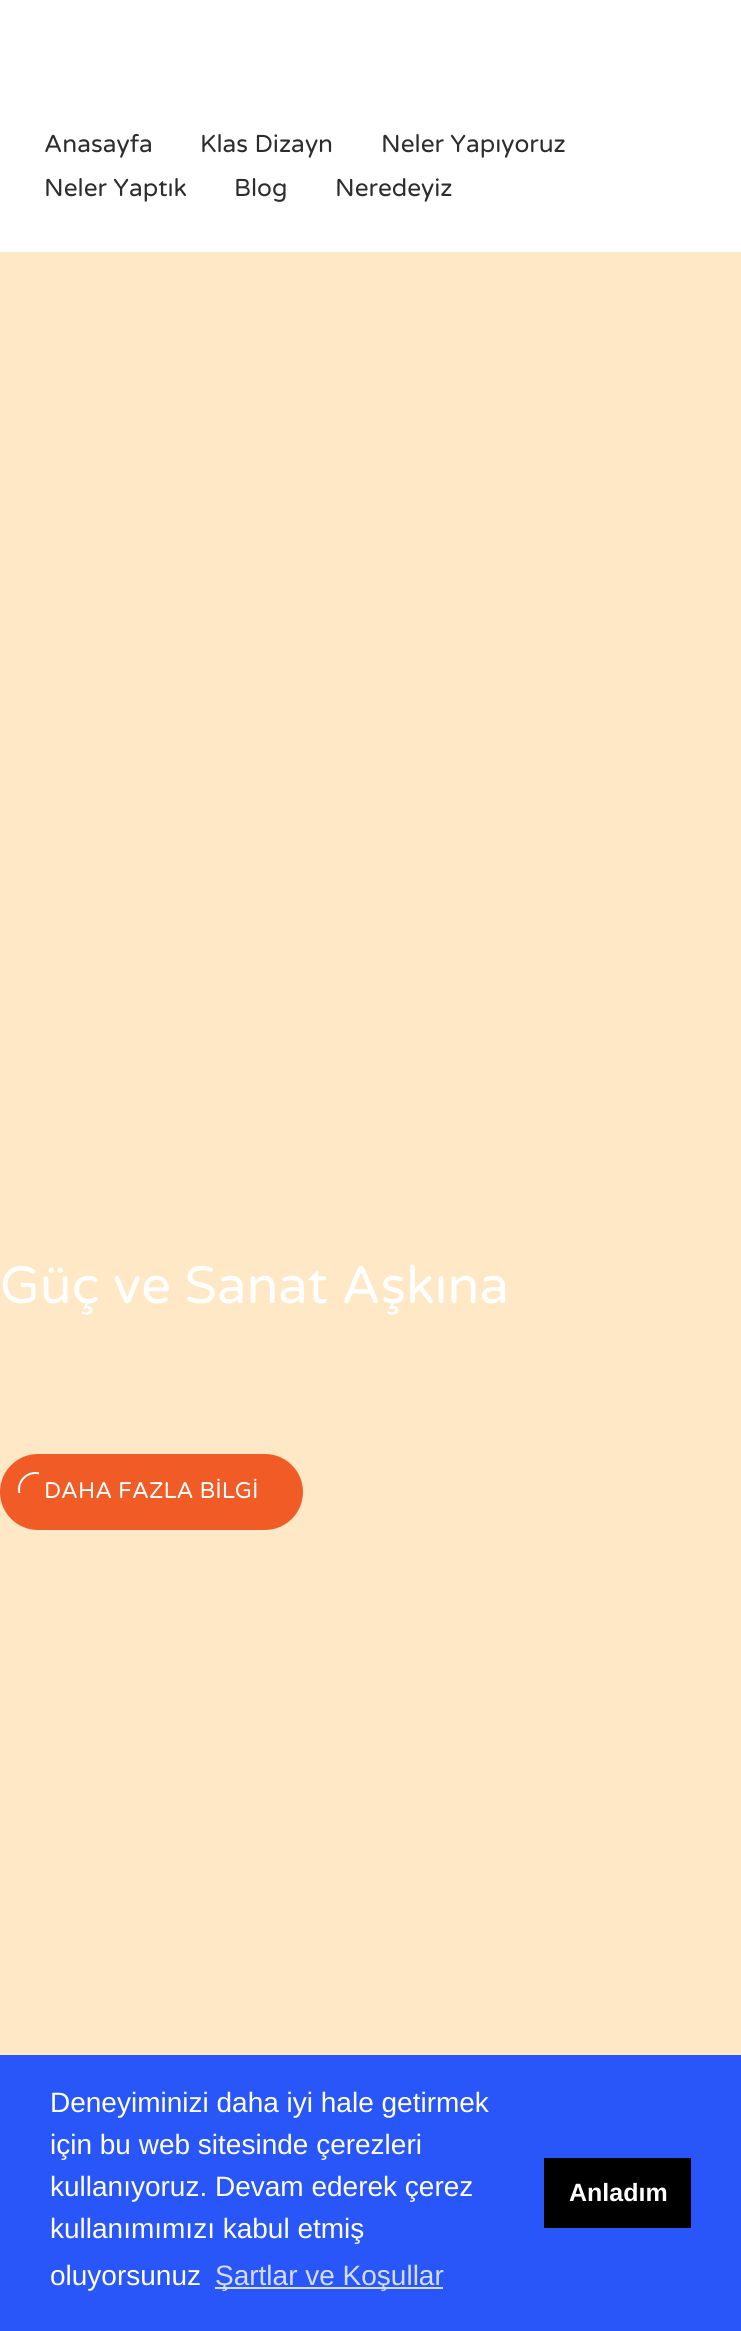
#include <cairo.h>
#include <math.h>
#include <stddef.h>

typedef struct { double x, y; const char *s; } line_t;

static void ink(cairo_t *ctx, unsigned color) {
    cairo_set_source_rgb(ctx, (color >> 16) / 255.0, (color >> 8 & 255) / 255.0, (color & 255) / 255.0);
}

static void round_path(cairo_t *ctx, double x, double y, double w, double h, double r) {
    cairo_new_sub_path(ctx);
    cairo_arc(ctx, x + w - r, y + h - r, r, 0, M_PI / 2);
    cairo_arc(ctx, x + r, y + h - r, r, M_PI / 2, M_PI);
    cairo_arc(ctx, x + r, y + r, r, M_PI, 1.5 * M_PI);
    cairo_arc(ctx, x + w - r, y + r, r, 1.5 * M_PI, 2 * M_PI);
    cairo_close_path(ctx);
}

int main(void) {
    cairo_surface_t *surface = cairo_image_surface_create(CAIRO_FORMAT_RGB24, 741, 2331);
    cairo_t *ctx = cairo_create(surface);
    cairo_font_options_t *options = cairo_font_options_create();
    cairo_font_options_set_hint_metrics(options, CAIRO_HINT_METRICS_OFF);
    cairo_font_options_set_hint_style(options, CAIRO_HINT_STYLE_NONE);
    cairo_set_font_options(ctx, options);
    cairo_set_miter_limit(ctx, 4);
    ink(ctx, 0xFFFFFF);
    cairo_paint(ctx);
    cairo_select_font_face(ctx, "Varela Round", CAIRO_FONT_SLANT_NORMAL, CAIRO_FONT_WEIGHT_NORMAL);
    cairo_set_font_size(ctx, 24.5);
    ink(ctx, 0x2F2C2C);
    {
        static const line_t items[] = {
            {44, 152, "Anasayfa"},
            {200, 152, "Klas Dizayn"},
            {381, 152, "Neler Yapıyoruz"},
            {44, 196, "Neler Yaptık"},
            {234, 196, "Blog"},
            {335, 196, "Neredeyiz"},
        };
        for (size_t i = 0; i < sizeof items / sizeof *items; i++) {
            cairo_move_to(ctx, items[i].x, items[i].y);
            cairo_show_text(ctx, items[i].s);
        }
    }
    ink(ctx, 0xFFE8C5);
    cairo_rectangle(ctx, 0, 252, 741, 1803);
    cairo_fill(ctx);
    cairo_set_font_size(ctx, 52.5);
    ink(ctx, 0xFFFFFF);
    cairo_move_to(ctx, 0, 1303);
    cairo_show_text(ctx, "Güç ve Sanat Aşkına");
    ink(ctx, 0xF15B26);
    round_path(ctx, 0, 1454, 303, 76, 38);
    cairo_fill(ctx);
    cairo_save(ctx);
    cairo_rectangle(ctx, 18, 1472, 21, 21);
    cairo_clip(ctx);
    cairo_arc(ctx, 35.5, 1489.5, 16.5, 0, 2 * M_PI);
    ink(ctx, 0xFFFFFF);
    cairo_stroke(ctx);
    cairo_restore(ctx);
    cairo_set_font_size(ctx, 22.75);
    ink(ctx, 0xFFFFFF);
    cairo_move_to(ctx, 44, 1498);
    cairo_show_text(ctx, "DAHA FAZLA BİLGİ");
    ink(ctx, 0x2956F8);
    cairo_rectangle(ctx, 0, 2055, 741, 276);
    cairo_fill(ctx);
    cairo_select_font_face(ctx, "Liberation Sans", CAIRO_FONT_SLANT_NORMAL, CAIRO_FONT_WEIGHT_NORMAL);
    cairo_set_font_size(ctx, 28);
    ink(ctx, 0xFFFFFF);
    {
        static const line_t items[] = {
            {50, 2112, "Deneyiminizi daha iyi hale getirmek"},
            {50, 2154, "için bu web sitesinde çerezleri"},
            {50, 2196, "kullanıyoruz. Devam ederek çerez"},
            {50, 2238, "kullanımımızı kabul etmiş"},
            {50, 2285, "oluyorsunuz"},
        };
        for (size_t i = 0; i < sizeof items / sizeof *items; i++) {
            cairo_move_to(ctx, items[i].x, items[i].y);
            cairo_show_text(ctx, items[i].s);
        }
    }
    ink(ctx, 0xD4DDFE);
    cairo_rectangle(ctx, 215, 2287, 228, 2);
    cairo_fill(ctx);
    cairo_move_to(ctx, 215, 2285);
    cairo_show_text(ctx, "Şartlar ve Koşullar");
    ink(ctx, 0x000000);
    cairo_rectangle(ctx, 544, 2158, 147, 70);
    cairo_fill(ctx);
    cairo_select_font_face(ctx, "Liberation Sans", CAIRO_FONT_SLANT_NORMAL, CAIRO_FONT_WEIGHT_BOLD);
    cairo_set_font_size(ctx, 25);
    ink(ctx, 0xFFFFFF);
    cairo_move_to(ctx, 569, 2201);
    cairo_show_text(ctx, "Anladım");
    cairo_surface_write_to_png(surface, "image.png");
    cairo_font_options_destroy(options);
    cairo_destroy(ctx);
    cairo_surface_destroy(surface);
    return 0;
}
